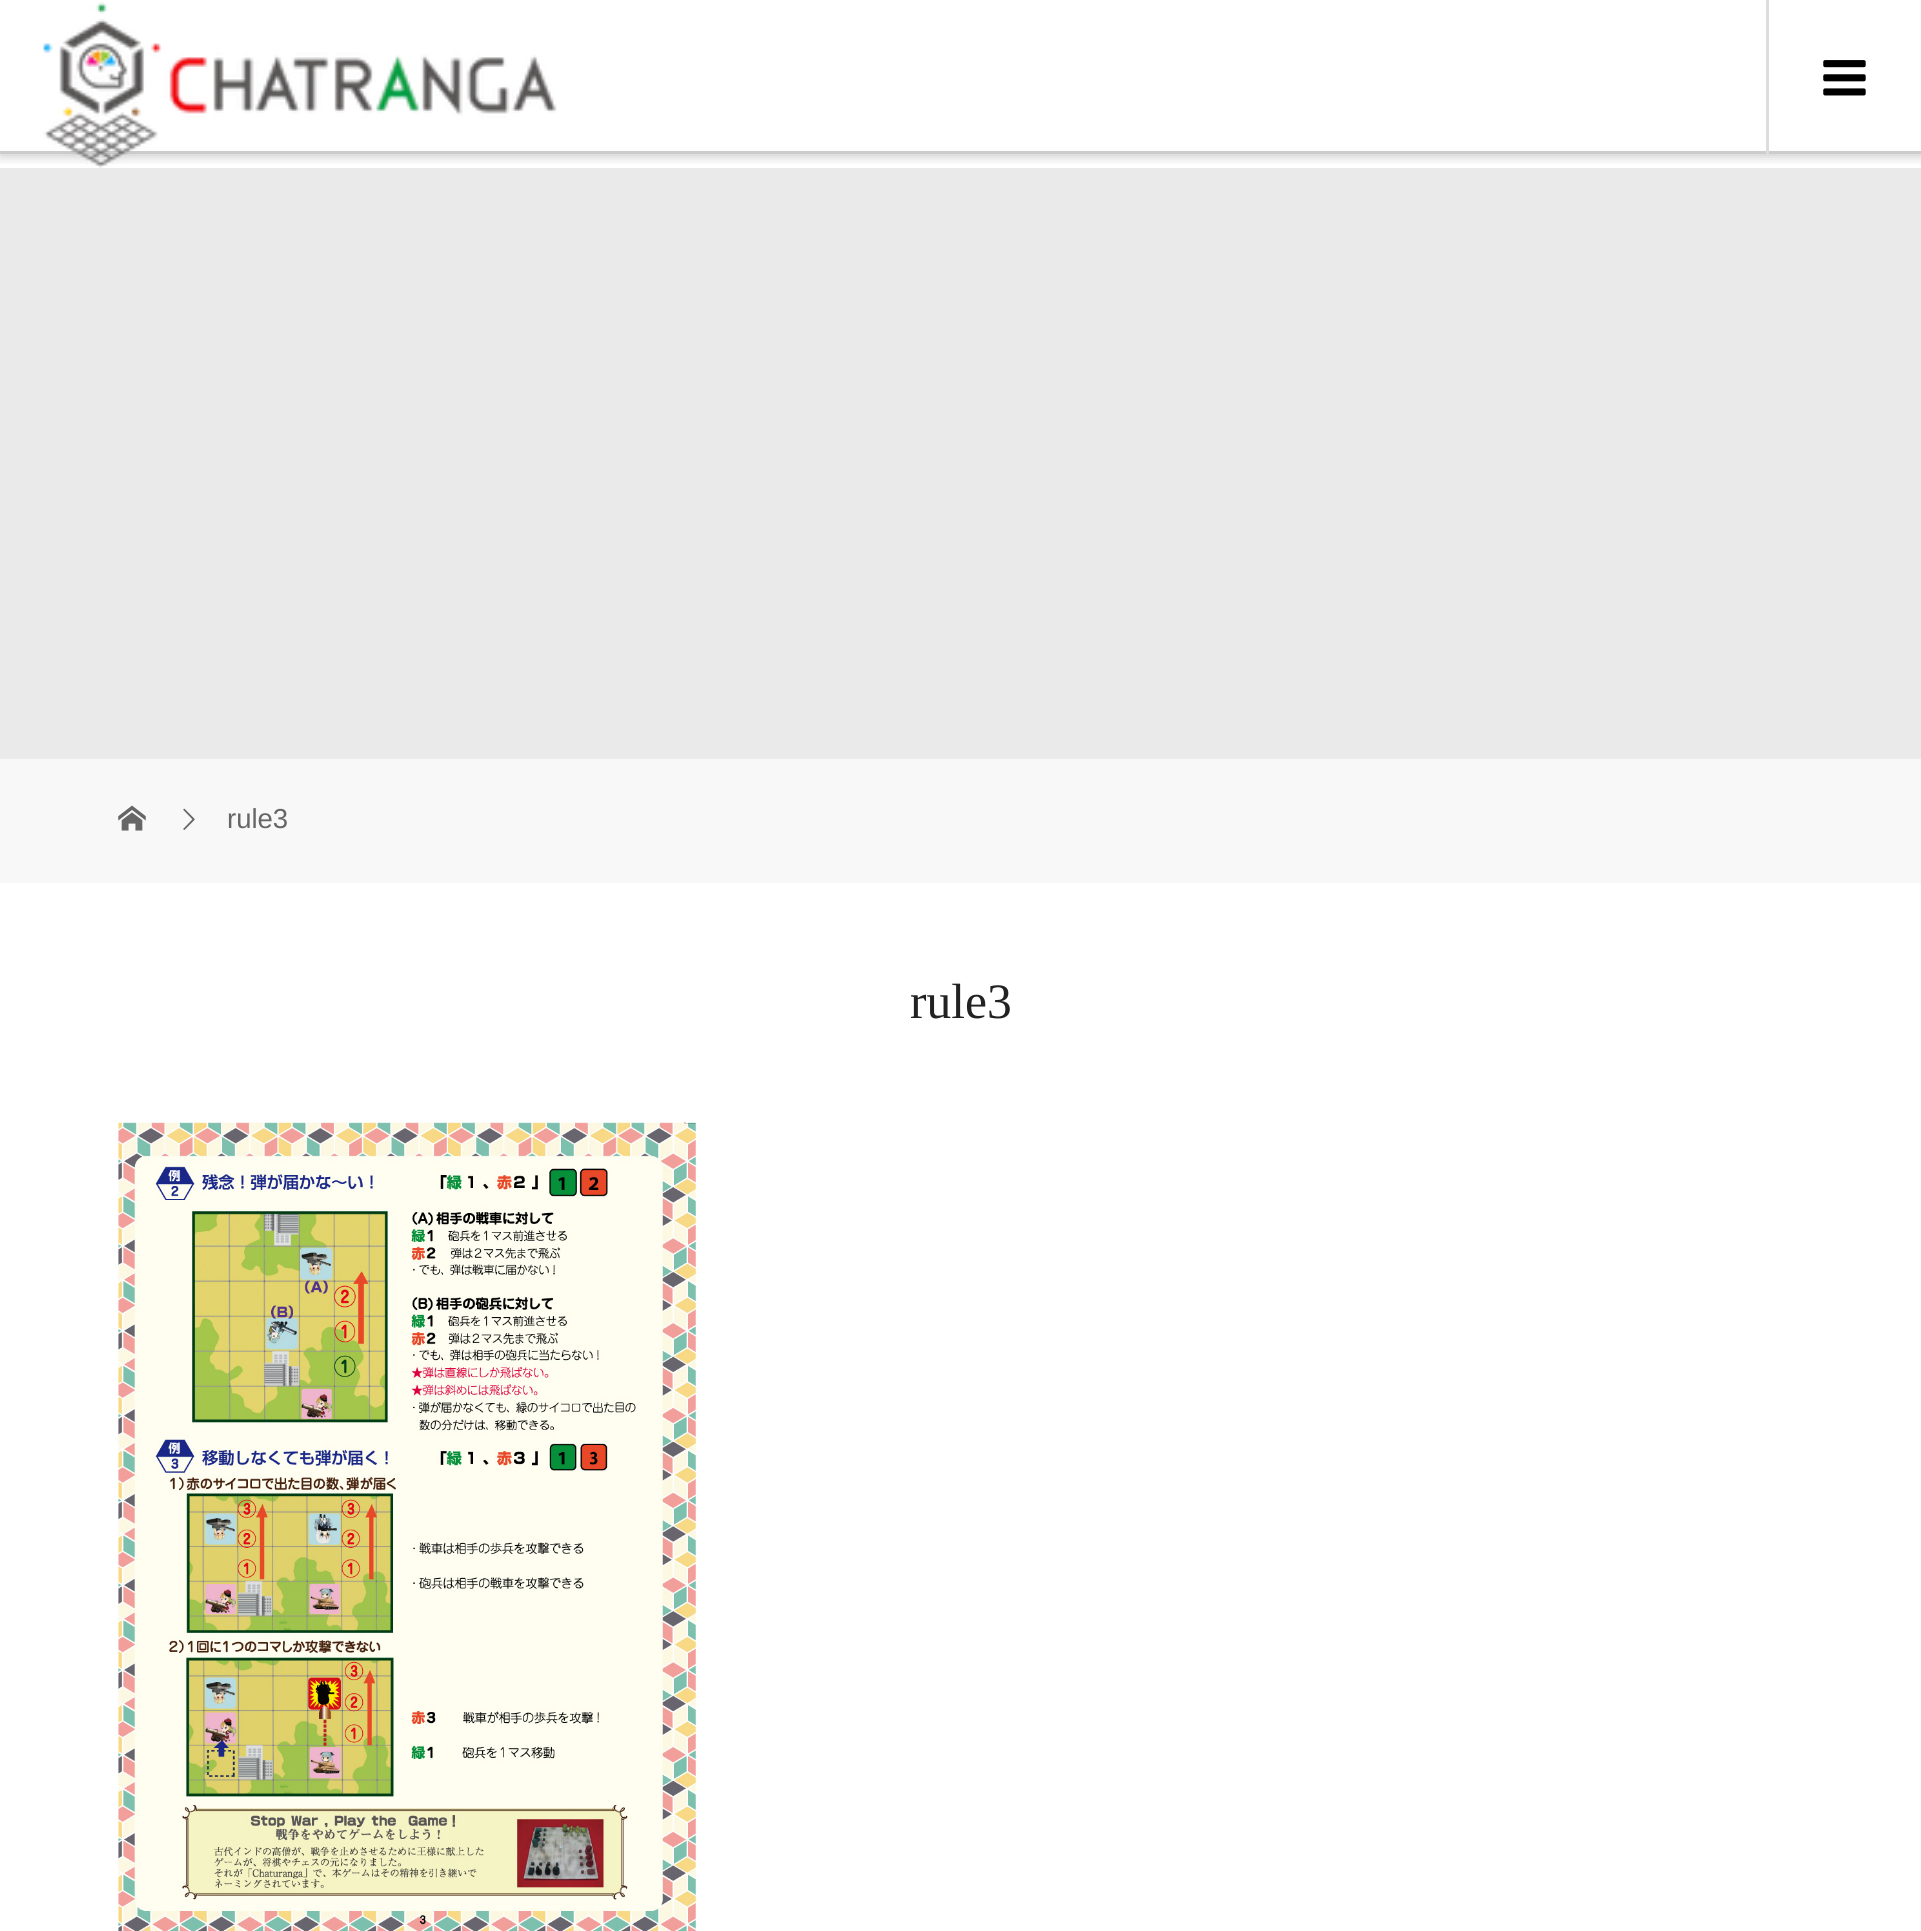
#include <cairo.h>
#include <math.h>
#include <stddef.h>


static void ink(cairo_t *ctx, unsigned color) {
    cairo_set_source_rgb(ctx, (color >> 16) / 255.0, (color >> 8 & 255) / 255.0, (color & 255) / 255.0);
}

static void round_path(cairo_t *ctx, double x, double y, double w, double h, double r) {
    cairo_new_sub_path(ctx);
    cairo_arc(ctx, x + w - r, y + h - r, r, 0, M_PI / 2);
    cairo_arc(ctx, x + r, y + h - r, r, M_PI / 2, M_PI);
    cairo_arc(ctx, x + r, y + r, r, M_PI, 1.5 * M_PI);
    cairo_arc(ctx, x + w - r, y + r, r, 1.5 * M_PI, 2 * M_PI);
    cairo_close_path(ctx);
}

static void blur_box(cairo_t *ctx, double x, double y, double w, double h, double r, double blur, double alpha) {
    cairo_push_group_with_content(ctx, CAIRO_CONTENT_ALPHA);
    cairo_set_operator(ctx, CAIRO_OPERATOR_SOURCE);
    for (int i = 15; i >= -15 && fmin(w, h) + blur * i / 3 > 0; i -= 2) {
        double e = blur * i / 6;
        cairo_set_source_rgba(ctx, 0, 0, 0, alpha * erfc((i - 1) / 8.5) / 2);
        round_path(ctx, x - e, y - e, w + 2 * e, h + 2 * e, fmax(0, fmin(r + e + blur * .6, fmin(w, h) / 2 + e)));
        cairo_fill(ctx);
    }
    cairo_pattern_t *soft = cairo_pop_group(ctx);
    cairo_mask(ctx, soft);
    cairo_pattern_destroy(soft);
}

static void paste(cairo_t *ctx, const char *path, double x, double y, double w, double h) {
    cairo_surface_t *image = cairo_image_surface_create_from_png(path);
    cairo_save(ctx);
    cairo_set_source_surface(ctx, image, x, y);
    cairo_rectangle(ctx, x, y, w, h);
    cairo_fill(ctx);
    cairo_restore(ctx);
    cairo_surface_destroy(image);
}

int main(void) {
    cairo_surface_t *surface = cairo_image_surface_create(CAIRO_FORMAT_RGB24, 1921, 1931);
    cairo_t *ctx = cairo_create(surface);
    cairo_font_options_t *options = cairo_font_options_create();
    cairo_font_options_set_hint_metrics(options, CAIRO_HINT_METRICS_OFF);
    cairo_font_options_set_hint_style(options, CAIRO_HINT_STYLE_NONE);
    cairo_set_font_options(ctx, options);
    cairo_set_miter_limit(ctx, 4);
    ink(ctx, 0xFFFFFF);
    cairo_paint(ctx);
    ink(ctx, 0xEAEAEA);
    cairo_rectangle(ctx, 0, 168, 1921, 591);
    cairo_fill(ctx);
    cairo_save(ctx);
    cairo_rectangle(ctx, 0, 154, 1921, 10);
    cairo_clip(ctx);
    ink(ctx, 0x000000);
    blur_box(ctx, 0, 3, 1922, 154, 0, 5.5, 0.2);
    cairo_restore(ctx);
    ink(ctx, 0xCCCCCC);
    cairo_rectangle(ctx, 0, 151, 1921, 3);
    cairo_fill(ctx);
    paste(ctx, "media/1.png", 41, 2, 516, 166);
    ink(ctx, 0xDDDDDD);
    cairo_rectangle(ctx, 1766, 0, 3, 154);
    cairo_fill(ctx);
    paste(ctx, "media/2.png", 1823, 60, 43, 36);
    ink(ctx, 0xF8F8F8);
    cairo_rectangle(ctx, 0, 759, 1921, 124);
    cairo_fill(ctx);
    paste(ctx, "media/3.png", 118, 805, 28, 26);
    paste(ctx, "media/4.png", 183, 808, 12, 22);
    cairo_select_font_face(ctx, "Liberation Sans", CAIRO_FONT_SLANT_NORMAL, CAIRO_FONT_WEIGHT_NORMAL);
    cairo_set_font_size(ctx, 27.5);
    ink(ctx, 0x666666);
    cairo_move_to(ctx, 227, 828);
    cairo_show_text(ctx, "rule3");
    cairo_select_font_face(ctx, "Liberation Serif", CAIRO_FONT_SLANT_NORMAL, CAIRO_FONT_WEIGHT_NORMAL);
    cairo_set_font_size(ctx, 49.5);
    ink(ctx, 0x222222);
    cairo_move_to(ctx, 910, 1018);
    cairo_show_text(ctx, "rule3");
    paste(ctx, "media/5.png", 118, 1122, 578, 809);
    cairo_surface_write_to_png(surface, "image.png");
    cairo_font_options_destroy(options);
    cairo_destroy(ctx);
    cairo_surface_destroy(surface);
    return 0;
}
